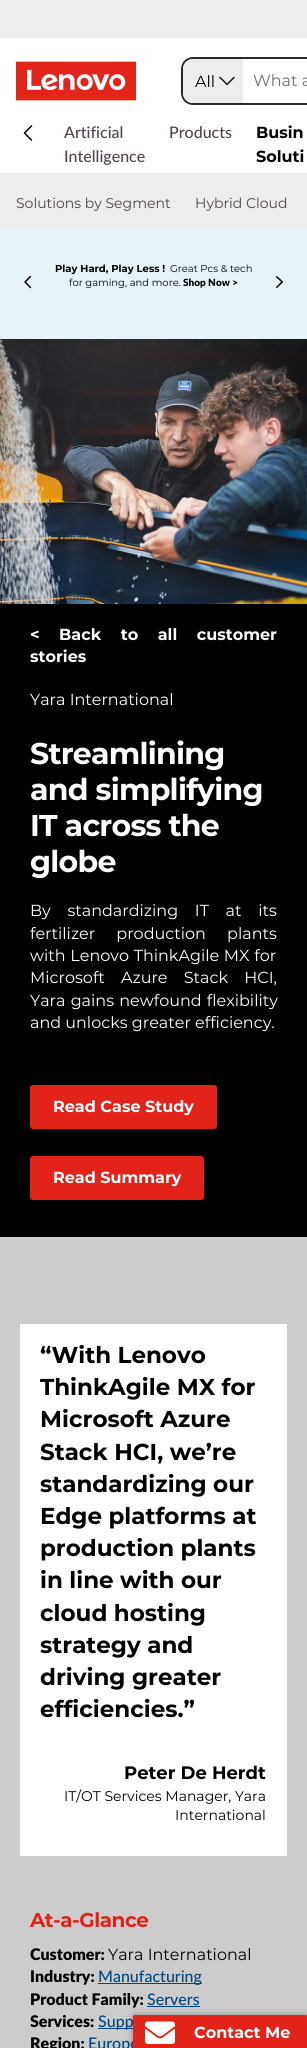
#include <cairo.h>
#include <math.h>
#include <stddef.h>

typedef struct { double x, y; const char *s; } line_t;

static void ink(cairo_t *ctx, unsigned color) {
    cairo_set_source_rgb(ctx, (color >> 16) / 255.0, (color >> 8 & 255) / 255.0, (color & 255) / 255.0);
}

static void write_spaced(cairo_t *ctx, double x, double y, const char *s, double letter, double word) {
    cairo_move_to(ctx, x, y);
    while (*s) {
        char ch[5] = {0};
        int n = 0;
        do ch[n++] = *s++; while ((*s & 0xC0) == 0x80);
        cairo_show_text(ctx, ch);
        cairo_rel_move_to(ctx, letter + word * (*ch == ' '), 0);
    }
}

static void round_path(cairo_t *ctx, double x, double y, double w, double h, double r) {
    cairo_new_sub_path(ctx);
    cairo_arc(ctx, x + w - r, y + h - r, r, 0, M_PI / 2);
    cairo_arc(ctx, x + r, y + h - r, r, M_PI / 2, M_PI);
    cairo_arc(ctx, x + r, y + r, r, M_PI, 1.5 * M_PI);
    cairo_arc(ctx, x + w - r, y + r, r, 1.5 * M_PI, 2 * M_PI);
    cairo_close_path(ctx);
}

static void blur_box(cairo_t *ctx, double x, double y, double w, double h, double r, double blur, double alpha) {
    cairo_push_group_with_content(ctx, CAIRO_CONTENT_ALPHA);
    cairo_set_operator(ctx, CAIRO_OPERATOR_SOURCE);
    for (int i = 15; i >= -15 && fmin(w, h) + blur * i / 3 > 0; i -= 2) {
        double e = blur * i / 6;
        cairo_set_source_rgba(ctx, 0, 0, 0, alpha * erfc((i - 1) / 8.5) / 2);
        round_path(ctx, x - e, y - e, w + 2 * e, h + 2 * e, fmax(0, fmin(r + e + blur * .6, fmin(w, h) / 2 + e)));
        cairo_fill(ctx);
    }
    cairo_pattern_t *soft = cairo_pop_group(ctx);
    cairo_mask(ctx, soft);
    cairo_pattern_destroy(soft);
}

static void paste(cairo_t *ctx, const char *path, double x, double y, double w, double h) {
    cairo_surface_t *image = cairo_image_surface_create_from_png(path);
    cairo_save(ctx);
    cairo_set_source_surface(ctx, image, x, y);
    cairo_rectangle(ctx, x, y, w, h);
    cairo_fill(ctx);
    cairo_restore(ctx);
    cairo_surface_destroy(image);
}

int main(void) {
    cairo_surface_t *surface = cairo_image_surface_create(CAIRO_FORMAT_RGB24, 307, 2048);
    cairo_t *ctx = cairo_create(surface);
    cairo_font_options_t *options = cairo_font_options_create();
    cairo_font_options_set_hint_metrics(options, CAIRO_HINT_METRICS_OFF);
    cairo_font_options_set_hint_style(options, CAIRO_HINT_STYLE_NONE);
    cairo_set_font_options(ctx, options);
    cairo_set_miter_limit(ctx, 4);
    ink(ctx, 0xFFFFFF);
    cairo_paint(ctx);
    ink(ctx, 0xEDEDED);
    cairo_rectangle(ctx, 0, 0, 307, 38);
    cairo_fill(ctx);
    paste(ctx, "media/1.png", 16, 61, 120, 40);
    round_path(ctx, 182, 58, 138, 46, 11);
    ink(ctx, 0x2A2A2A);
    cairo_stroke(ctx);
    ink(ctx, 0xEDEDED);
    cairo_new_path(ctx);
    cairo_move_to(ctx, 193, 59);
    cairo_line_to(ctx, 243, 59);
    cairo_line_to(ctx, 243, 103);
    cairo_line_to(ctx, 193, 103);
    cairo_curve_to(ctx, 187.5, 103, 183, 98.5, 183, 93);
    cairo_line_to(ctx, 183, 69);
    cairo_curve_to(ctx, 183, 63.5, 187.5, 59, 193, 59);
    cairo_close_path(ctx);
    cairo_fill(ctx);
    cairo_select_font_face(ctx, "Montserrat", CAIRO_FONT_SLANT_NORMAL, CAIRO_FONT_WEIGHT_NORMAL);
    cairo_set_font_size(ctx, 16);
    ink(ctx, 0x000000);
    cairo_move_to(ctx, 195, 87);
    cairo_show_text(ctx, "All");
    paste(ctx, "media/2.png", 219, 76, 16, 10);
    ink(ctx, 0x6F6D6E);
    cairo_move_to(ctx, 253, 86);
    cairo_show_text(ctx, "What a");
    paste(ctx, "media/3.png", 23, 125, 10, 16);
    cairo_select_font_face(ctx, "Lato Medium", CAIRO_FONT_SLANT_NORMAL, CAIRO_FONT_WEIGHT_NORMAL);
    ink(ctx, 0x4E444E);
    {
        static const line_t items[] = {
            {64, 138, "Artificial"},
            {64, 162, "Intelligence"},
            {169, 138, "Products"},
        };
        for (size_t i = 0; i < sizeof items / sizeof *items; i++) {
            cairo_move_to(ctx, items[i].x, items[i].y);
            cairo_show_text(ctx, items[i].s);
        }
    }
    cairo_select_font_face(ctx, "Montserrat", CAIRO_FONT_SLANT_NORMAL, CAIRO_FONT_WEIGHT_BOLD);
    ink(ctx, 0x000000);
    cairo_move_to(ctx, 256, 138);
    cairo_show_text(ctx, "Busin");
    cairo_move_to(ctx, 256, 162);
    cairo_show_text(ctx, "Soluti");
    ink(ctx, 0xEDEDED);
    cairo_rectangle(ctx, 0, 173, 307, 56);
    cairo_fill(ctx);
    cairo_select_font_face(ctx, "Montserrat", CAIRO_FONT_SLANT_NORMAL, CAIRO_FONT_WEIGHT_NORMAL);
    cairo_set_font_size(ctx, 14);
    ink(ctx, 0x4E444E);
    cairo_move_to(ctx, 16, 208);
    cairo_show_text(ctx, "Solutions by Segment");
    cairo_move_to(ctx, 195, 208);
    cairo_show_text(ctx, "Hybrid Cloud");
    ink(ctx, 0xE6F4FA);
    cairo_rectangle(ctx, 0, 229, 307, 110);
    cairo_fill(ctx);
    paste(ctx, "media/4.png", 24, 275, 8, 14);
    cairo_select_font_face(ctx, "Montserrat", CAIRO_FONT_SLANT_NORMAL, CAIRO_FONT_WEIGHT_BOLD);
    cairo_set_font_size(ctx, 10);
    ink(ctx, 0x000000);
    cairo_move_to(ctx, 55, 272);
    cairo_show_text(ctx, "Play Hard, Play Less !");
    cairo_select_font_face(ctx, "Montserrat", CAIRO_FONT_SLANT_NORMAL, CAIRO_FONT_WEIGHT_NORMAL);
    cairo_move_to(ctx, 170, 272);
    cairo_show_text(ctx, "Great Pcs & tech");
    cairo_move_to(ctx, 69, 286);
    cairo_show_text(ctx, "for gaming, and more.");
    cairo_select_font_face(ctx, "Lato Black", CAIRO_FONT_SLANT_NORMAL, CAIRO_FONT_WEIGHT_NORMAL);
    cairo_move_to(ctx, 183, 286);
    cairo_show_text(ctx, "Shop Now >");
    paste(ctx, "media/5.png", 276, 276, 7, 12);
    paste(ctx, "media/6.png", 0, 339, 307, 265);
    cairo_rectangle(ctx, 0, 604, 307, 633);
    cairo_fill(ctx);
    cairo_select_font_face(ctx, "Montserrat", CAIRO_FONT_SLANT_NORMAL, CAIRO_FONT_WEIGHT_BOLD);
    cairo_set_font_size(ctx, 16);
    ink(ctx, 0xFFFFFF);
    write_spaced(ctx, 30, 640, "< Back to all customer", 0, 15);
    cairo_move_to(ctx, 30, 662);
    cairo_show_text(ctx, "stories");
    cairo_select_font_face(ctx, "Montserrat", CAIRO_FONT_SLANT_NORMAL, CAIRO_FONT_WEIGHT_NORMAL);
    cairo_move_to(ctx, 30, 705);
    cairo_show_text(ctx, "Yara International");
    cairo_select_font_face(ctx, "Montserrat", CAIRO_FONT_SLANT_NORMAL, CAIRO_FONT_WEIGHT_BOLD);
    cairo_set_font_size(ctx, 30);
    {
        static const line_t items[] = {
            {30, 764, "Streamlining"},
            {30, 800, "and simplifying"},
            {30, 836, "IT across the"},
            {30, 872, "globe"},
        };
        for (size_t i = 0; i < sizeof items / sizeof *items; i++) {
            write_spaced(ctx, items[i].x, items[i].y, items[i].s, -0.75, 0);
        }
    }
    cairo_select_font_face(ctx, "Montserrat", CAIRO_FONT_SLANT_NORMAL, CAIRO_FONT_WEIGHT_NORMAL);
    cairo_set_font_size(ctx, 16);
    write_spaced(ctx, 30, 916, "By standardizing IT at its", 0, 12.5);
    write_spaced(ctx, 30, 939, "fertilizer production plants", 0, 17);
    write_spaced(ctx, 30, 961, "with Lenovo ThinkAgile MX for", 0, 0.5);
    write_spaced(ctx, 30, 983, "Microsoft Azure Stack HCI,", 0, 12);
    write_spaced(ctx, 30, 1006, "Yara gains newfound flexibility", 0, 1);
    cairo_move_to(ctx, 30, 1028);
    cairo_show_text(ctx, "and unlocks greater efficiency.");
    ink(ctx, 0xE2231A);
    round_path(ctx, 30, 1085, 187, 44, 3);
    cairo_fill(ctx);
    cairo_select_font_face(ctx, "Montserrat", CAIRO_FONT_SLANT_NORMAL, CAIRO_FONT_WEIGHT_BOLD);
    ink(ctx, 0xFFFFFF);
    cairo_move_to(ctx, 53, 1112);
    cairo_show_text(ctx, "Read Case Study");
    ink(ctx, 0xE2231A);
    round_path(ctx, 30, 1156, 174, 44, 3);
    cairo_fill(ctx);
    ink(ctx, 0xFFFFFF);
    cairo_move_to(ctx, 53, 1183);
    cairo_show_text(ctx, "Read Summary");
    ink(ctx, 0xCCCCCC);
    cairo_rectangle(ctx, 0, 1237, 307, 811);
    cairo_fill(ctx);
    ink(ctx, 0xFFFFFF);
    cairo_rectangle(ctx, 20, 1324, 267, 532);
    cairo_fill(ctx);
    cairo_set_font_size(ctx, 23);
    ink(ctx, 0x000000);
    {
        static const line_t items[] = {
            {40, 1363, "“With Lenovo"},
            {40, 1395, "ThinkAgile MX for"},
            {40, 1427, "Microsoft Azure"},
            {40, 1460, "Stack HCI, we’re"},
            {40, 1492, "standardizing our"},
            {40, 1524, "Edge platforms at"},
            {40, 1556, "production plants"},
            {40, 1588, "in line with our"},
            {40, 1621, "cloud hosting"},
            {40, 1653, "strategy and"},
            {40, 1685, "driving greater"},
            {40, 1717, "efficiencies.”"},
        };
        for (size_t i = 0; i < sizeof items / sizeof *items; i++) {
            cairo_move_to(ctx, items[i].x, items[i].y);
            cairo_show_text(ctx, items[i].s);
        }
    }
    cairo_set_font_size(ctx, 18);
    cairo_move_to(ctx, 124, 1779);
    cairo_show_text(ctx, "Peter De Herdt");
    cairo_select_font_face(ctx, "Montserrat", CAIRO_FONT_SLANT_NORMAL, CAIRO_FONT_WEIGHT_NORMAL);
    cairo_set_font_size(ctx, 14);
    cairo_move_to(ctx, 64, 1801);
    cairo_show_text(ctx, "IT/OT Services Manager, Yara");
    cairo_move_to(ctx, 175, 1820);
    cairo_show_text(ctx, "International");
    cairo_select_font_face(ctx, "Montserrat", CAIRO_FONT_SLANT_NORMAL, CAIRO_FONT_WEIGHT_BOLD);
    cairo_set_font_size(ctx, 20);
    ink(ctx, 0xE2231A);
    write_spaced(ctx, 30, 1927, "At-a-Glance", -0.5, 0);
    cairo_select_font_face(ctx, "Lato Black", CAIRO_FONT_SLANT_NORMAL, CAIRO_FONT_WEIGHT_NORMAL);
    cairo_set_font_size(ctx, 16);
    ink(ctx, 0x000000);
    cairo_move_to(ctx, 30, 1960);
    cairo_show_text(ctx, "Customer:");
    cairo_select_font_face(ctx, "Montserrat", CAIRO_FONT_SLANT_NORMAL, CAIRO_FONT_WEIGHT_NORMAL);
    cairo_move_to(ctx, 108, 1960);
    cairo_show_text(ctx, "Yara International");
    cairo_select_font_face(ctx, "Lato Black", CAIRO_FONT_SLANT_NORMAL, CAIRO_FONT_WEIGHT_NORMAL);
    cairo_move_to(ctx, 30, 1982);
    cairo_show_text(ctx, "Industry:");
    ink(ctx, 0x004680);
    cairo_rectangle(ctx, 98, 1983, 104, 1);
    cairo_fill(ctx);
    cairo_select_font_face(ctx, "Lato Medium", CAIRO_FONT_SLANT_NORMAL, CAIRO_FONT_WEIGHT_NORMAL);
    cairo_move_to(ctx, 98, 1982);
    cairo_show_text(ctx, "Manufacturing");
    cairo_select_font_face(ctx, "Lato Black", CAIRO_FONT_SLANT_NORMAL, CAIRO_FONT_WEIGHT_NORMAL);
    ink(ctx, 0x000000);
    cairo_move_to(ctx, 30, 2005);
    cairo_show_text(ctx, "Product Family:");
    cairo_select_font_face(ctx, "Lato Medium", CAIRO_FONT_SLANT_NORMAL, CAIRO_FONT_WEIGHT_NORMAL);
    ink(ctx, 0x004680);
    cairo_move_to(ctx, 147, 2005);
    cairo_show_text(ctx, "Servers");
    cairo_rectangle(ctx, 147, 2006, 53, 1);
    cairo_fill(ctx);
    cairo_select_font_face(ctx, "Lato Black", CAIRO_FONT_SLANT_NORMAL, CAIRO_FONT_WEIGHT_NORMAL);
    ink(ctx, 0x000000);
    cairo_move_to(ctx, 30, 2027);
    cairo_show_text(ctx, "Services:");
    ink(ctx, 0x004680);
    cairo_rectangle(ctx, 98, 2028, 35, 1);
    cairo_fill(ctx);
    cairo_select_font_face(ctx, "Lato Medium", CAIRO_FONT_SLANT_NORMAL, CAIRO_FONT_WEIGHT_NORMAL);
    cairo_move_to(ctx, 98, 2027);
    cairo_show_text(ctx, "Supp");
    cairo_select_font_face(ctx, "Lato Black", CAIRO_FONT_SLANT_NORMAL, CAIRO_FONT_WEIGHT_NORMAL);
    ink(ctx, 0x000000);
    cairo_move_to(ctx, 30, 2049);
    cairo_show_text(ctx, "Region:");
    cairo_select_font_face(ctx, "Lato Medium", CAIRO_FONT_SLANT_NORMAL, CAIRO_FONT_WEIGHT_NORMAL);
    ink(ctx, 0x004680);
    cairo_move_to(ctx, 88, 2049);
    cairo_show_text(ctx, "Europe");
    ink(ctx, 0x000000);
    blur_box(ctx, 133, 2015, 174, 33, 2, 3.5, 0.35);
    ink(ctx, 0xE2231A);
    cairo_new_path(ctx);
    cairo_move_to(ctx, 135, 2015);
    cairo_line_to(ctx, 305, 2015);
    cairo_curve_to(ctx, 306, 2015, 307, 2016, 307, 2017);
    cairo_line_to(ctx, 307, 2048);
    cairo_line_to(ctx, 133, 2048);
    cairo_line_to(ctx, 133, 2017);
    cairo_curve_to(ctx, 133, 2016, 134, 2015, 135, 2015);
    cairo_close_path(ctx);
    cairo_fill(ctx);
    paste(ctx, "media/7.png", 145, 2021, 30, 23);
    cairo_select_font_face(ctx, "Montserrat", CAIRO_FONT_SLANT_NORMAL, CAIRO_FONT_WEIGHT_BOLD);
    ink(ctx, 0xFFFFFF);
    cairo_move_to(ctx, 194, 2038);
    cairo_show_text(ctx, "Contact Me");
    cairo_surface_write_to_png(surface, "image.png");
    cairo_font_options_destroy(options);
    cairo_destroy(ctx);
    cairo_surface_destroy(surface);
    return 0;
}
